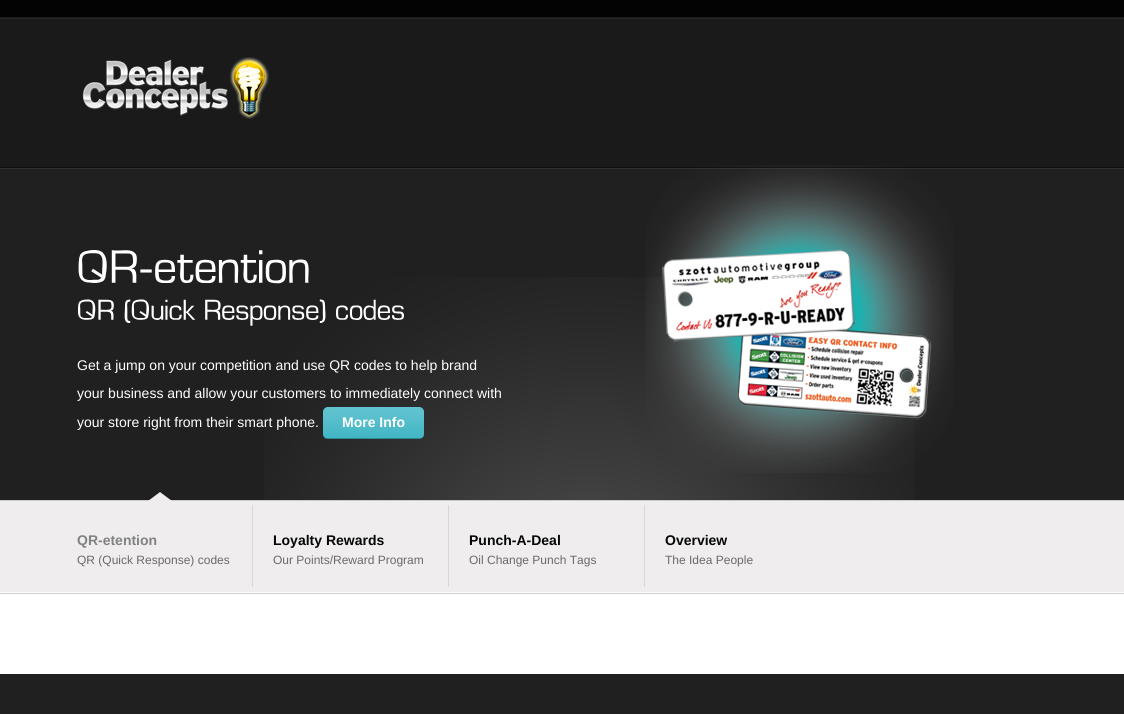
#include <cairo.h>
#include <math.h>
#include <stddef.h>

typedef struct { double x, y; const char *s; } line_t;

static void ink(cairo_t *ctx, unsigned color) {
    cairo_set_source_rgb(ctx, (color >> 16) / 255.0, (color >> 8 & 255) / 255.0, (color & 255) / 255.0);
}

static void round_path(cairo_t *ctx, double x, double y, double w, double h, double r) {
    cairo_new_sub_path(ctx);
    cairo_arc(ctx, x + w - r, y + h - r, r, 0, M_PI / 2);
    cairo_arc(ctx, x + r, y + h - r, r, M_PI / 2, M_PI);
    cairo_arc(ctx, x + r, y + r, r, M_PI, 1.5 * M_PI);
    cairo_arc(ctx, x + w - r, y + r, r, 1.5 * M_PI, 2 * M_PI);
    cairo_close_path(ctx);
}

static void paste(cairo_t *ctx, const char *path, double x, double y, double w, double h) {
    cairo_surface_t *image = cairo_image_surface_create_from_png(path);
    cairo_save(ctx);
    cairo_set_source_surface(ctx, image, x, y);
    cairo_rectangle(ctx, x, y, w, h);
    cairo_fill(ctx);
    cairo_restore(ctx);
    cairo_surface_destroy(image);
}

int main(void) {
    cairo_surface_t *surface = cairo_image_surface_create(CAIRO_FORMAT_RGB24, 1124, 715);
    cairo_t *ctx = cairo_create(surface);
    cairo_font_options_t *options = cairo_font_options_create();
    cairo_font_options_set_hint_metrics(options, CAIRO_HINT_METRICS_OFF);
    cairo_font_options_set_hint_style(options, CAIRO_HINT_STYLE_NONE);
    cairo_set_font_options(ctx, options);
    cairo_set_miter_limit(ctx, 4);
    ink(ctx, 0xFFFFFF);
    cairo_paint(ctx);
    paste(ctx, "media/1.png", 0, 0, 1124, 500);
    paste(ctx, "media/2.png", 82, 57, 187, 62);
    paste(ctx, "media/3.png", 264, 277, 651, 223);
    paste(ctx, "media/4.png", 78, 250, 231, 34);
    paste(ctx, "media/5.png", 78, 299, 36, 21);
    paste(ctx, "media/6.png", 124, 299, 72, 24);
    paste(ctx, "media/7.png", 205, 299, 121, 27);
    paste(ctx, "media/8.png", 336, 299, 68, 21);
    cairo_select_font_face(ctx, "Liberation Sans", CAIRO_FONT_SLANT_NORMAL, CAIRO_FONT_WEIGHT_NORMAL);
    cairo_set_font_size(ctx, 14);
    ink(ctx, 0xFFFFFF);
    {
        static const line_t items[] = {
            {77, 370, "Get a jump on your competition and use QR codes to help brand"},
            {77, 398, "your business and allow your customers to immediately connect with"},
            {77, 427, "your store right from their smart phone."},
        };
        for (size_t i = 0; i < sizeof items / sizeof *items; i++) {
            cairo_move_to(ctx, items[i].x, items[i].y);
            cairo_show_text(ctx, items[i].s);
        }
    }
    ink(ctx, 0x2DAEBF);
    round_path(ctx, 323, 407, 101, 32, 5);
    cairo_fill(ctx);
    paste(ctx, "media/9.png", 323, 407, 101, 32);
    cairo_set_source_rgba(ctx, 0, 0, 0, 0.25);
    cairo_rectangle(ctx, 326, 438, 96, 1);
    cairo_fill(ctx);
    cairo_select_font_face(ctx, "Liberation Sans", CAIRO_FONT_SLANT_NORMAL, CAIRO_FONT_WEIGHT_BOLD);
    ink(ctx, 0xFFFFFF);
    cairo_move_to(ctx, 342, 427);
    cairo_show_text(ctx, "More Info");
    paste(ctx, "media/10.png", 645, 165, 309, 308);
    ink(ctx, 0xEFEDED);
    cairo_rectangle(ctx, 0, 501, 1124, 91);
    cairo_fill(ctx);
    paste(ctx, "media/11.png", 0, 592, 1124, 2);
    ink(ctx, 0xCACACA);
    cairo_rectangle(ctx, 0, 500, 1124, 1);
    cairo_fill(ctx);
    paste(ctx, "media/12.png", 148, 492, 24, 9);
    ink(ctx, 0x828282);
    cairo_move_to(ctx, 77, 545);
    cairo_show_text(ctx, "QR-etention");
    cairo_select_font_face(ctx, "Liberation Sans", CAIRO_FONT_SLANT_NORMAL, CAIRO_FONT_WEIGHT_NORMAL);
    cairo_set_font_size(ctx, 12);
    ink(ctx, 0x6A6969);
    cairo_move_to(ctx, 77, 564);
    cairo_show_text(ctx, "QR (Quick Response) codes");
    ink(ctx, 0xD8D7D7);
    cairo_rectangle(ctx, 252, 505, 1, 82);
    cairo_fill(ctx);
    cairo_select_font_face(ctx, "Liberation Sans", CAIRO_FONT_SLANT_NORMAL, CAIRO_FONT_WEIGHT_BOLD);
    cairo_set_font_size(ctx, 14);
    ink(ctx, 0x060606);
    cairo_move_to(ctx, 273, 545);
    cairo_show_text(ctx, "Loyalty Rewards");
    cairo_select_font_face(ctx, "Liberation Sans", CAIRO_FONT_SLANT_NORMAL, CAIRO_FONT_WEIGHT_NORMAL);
    cairo_set_font_size(ctx, 12);
    ink(ctx, 0x6A6969);
    cairo_move_to(ctx, 273, 564);
    cairo_show_text(ctx, "Our Points/Reward Program");
    ink(ctx, 0xD8D7D7);
    cairo_rectangle(ctx, 448, 505, 1, 82);
    cairo_fill(ctx);
    cairo_select_font_face(ctx, "Liberation Sans", CAIRO_FONT_SLANT_NORMAL, CAIRO_FONT_WEIGHT_BOLD);
    cairo_set_font_size(ctx, 14);
    ink(ctx, 0x060606);
    cairo_move_to(ctx, 469, 545);
    cairo_show_text(ctx, "Punch-A-Deal");
    cairo_select_font_face(ctx, "Liberation Sans", CAIRO_FONT_SLANT_NORMAL, CAIRO_FONT_WEIGHT_NORMAL);
    cairo_set_font_size(ctx, 12);
    ink(ctx, 0x6A6969);
    cairo_move_to(ctx, 469, 564);
    cairo_show_text(ctx, "Oil Change Punch Tags");
    ink(ctx, 0xD8D7D7);
    cairo_rectangle(ctx, 644, 505, 1, 82);
    cairo_fill(ctx);
    cairo_select_font_face(ctx, "Liberation Sans", CAIRO_FONT_SLANT_NORMAL, CAIRO_FONT_WEIGHT_BOLD);
    cairo_set_font_size(ctx, 14);
    ink(ctx, 0x060606);
    cairo_move_to(ctx, 665, 545);
    cairo_show_text(ctx, "Overview");
    cairo_select_font_face(ctx, "Liberation Sans", CAIRO_FONT_SLANT_NORMAL, CAIRO_FONT_WEIGHT_NORMAL);
    cairo_set_font_size(ctx, 12);
    ink(ctx, 0x6A6969);
    cairo_move_to(ctx, 665, 564);
    cairo_show_text(ctx, "The Idea People");
    ink(ctx, 0x212020);
    cairo_rectangle(ctx, 0, 674, 1124, 40);
    cairo_fill(ctx);
    cairo_surface_write_to_png(surface, "image.png");
    cairo_font_options_destroy(options);
    cairo_destroy(ctx);
    cairo_surface_destroy(surface);
    return 0;
}
